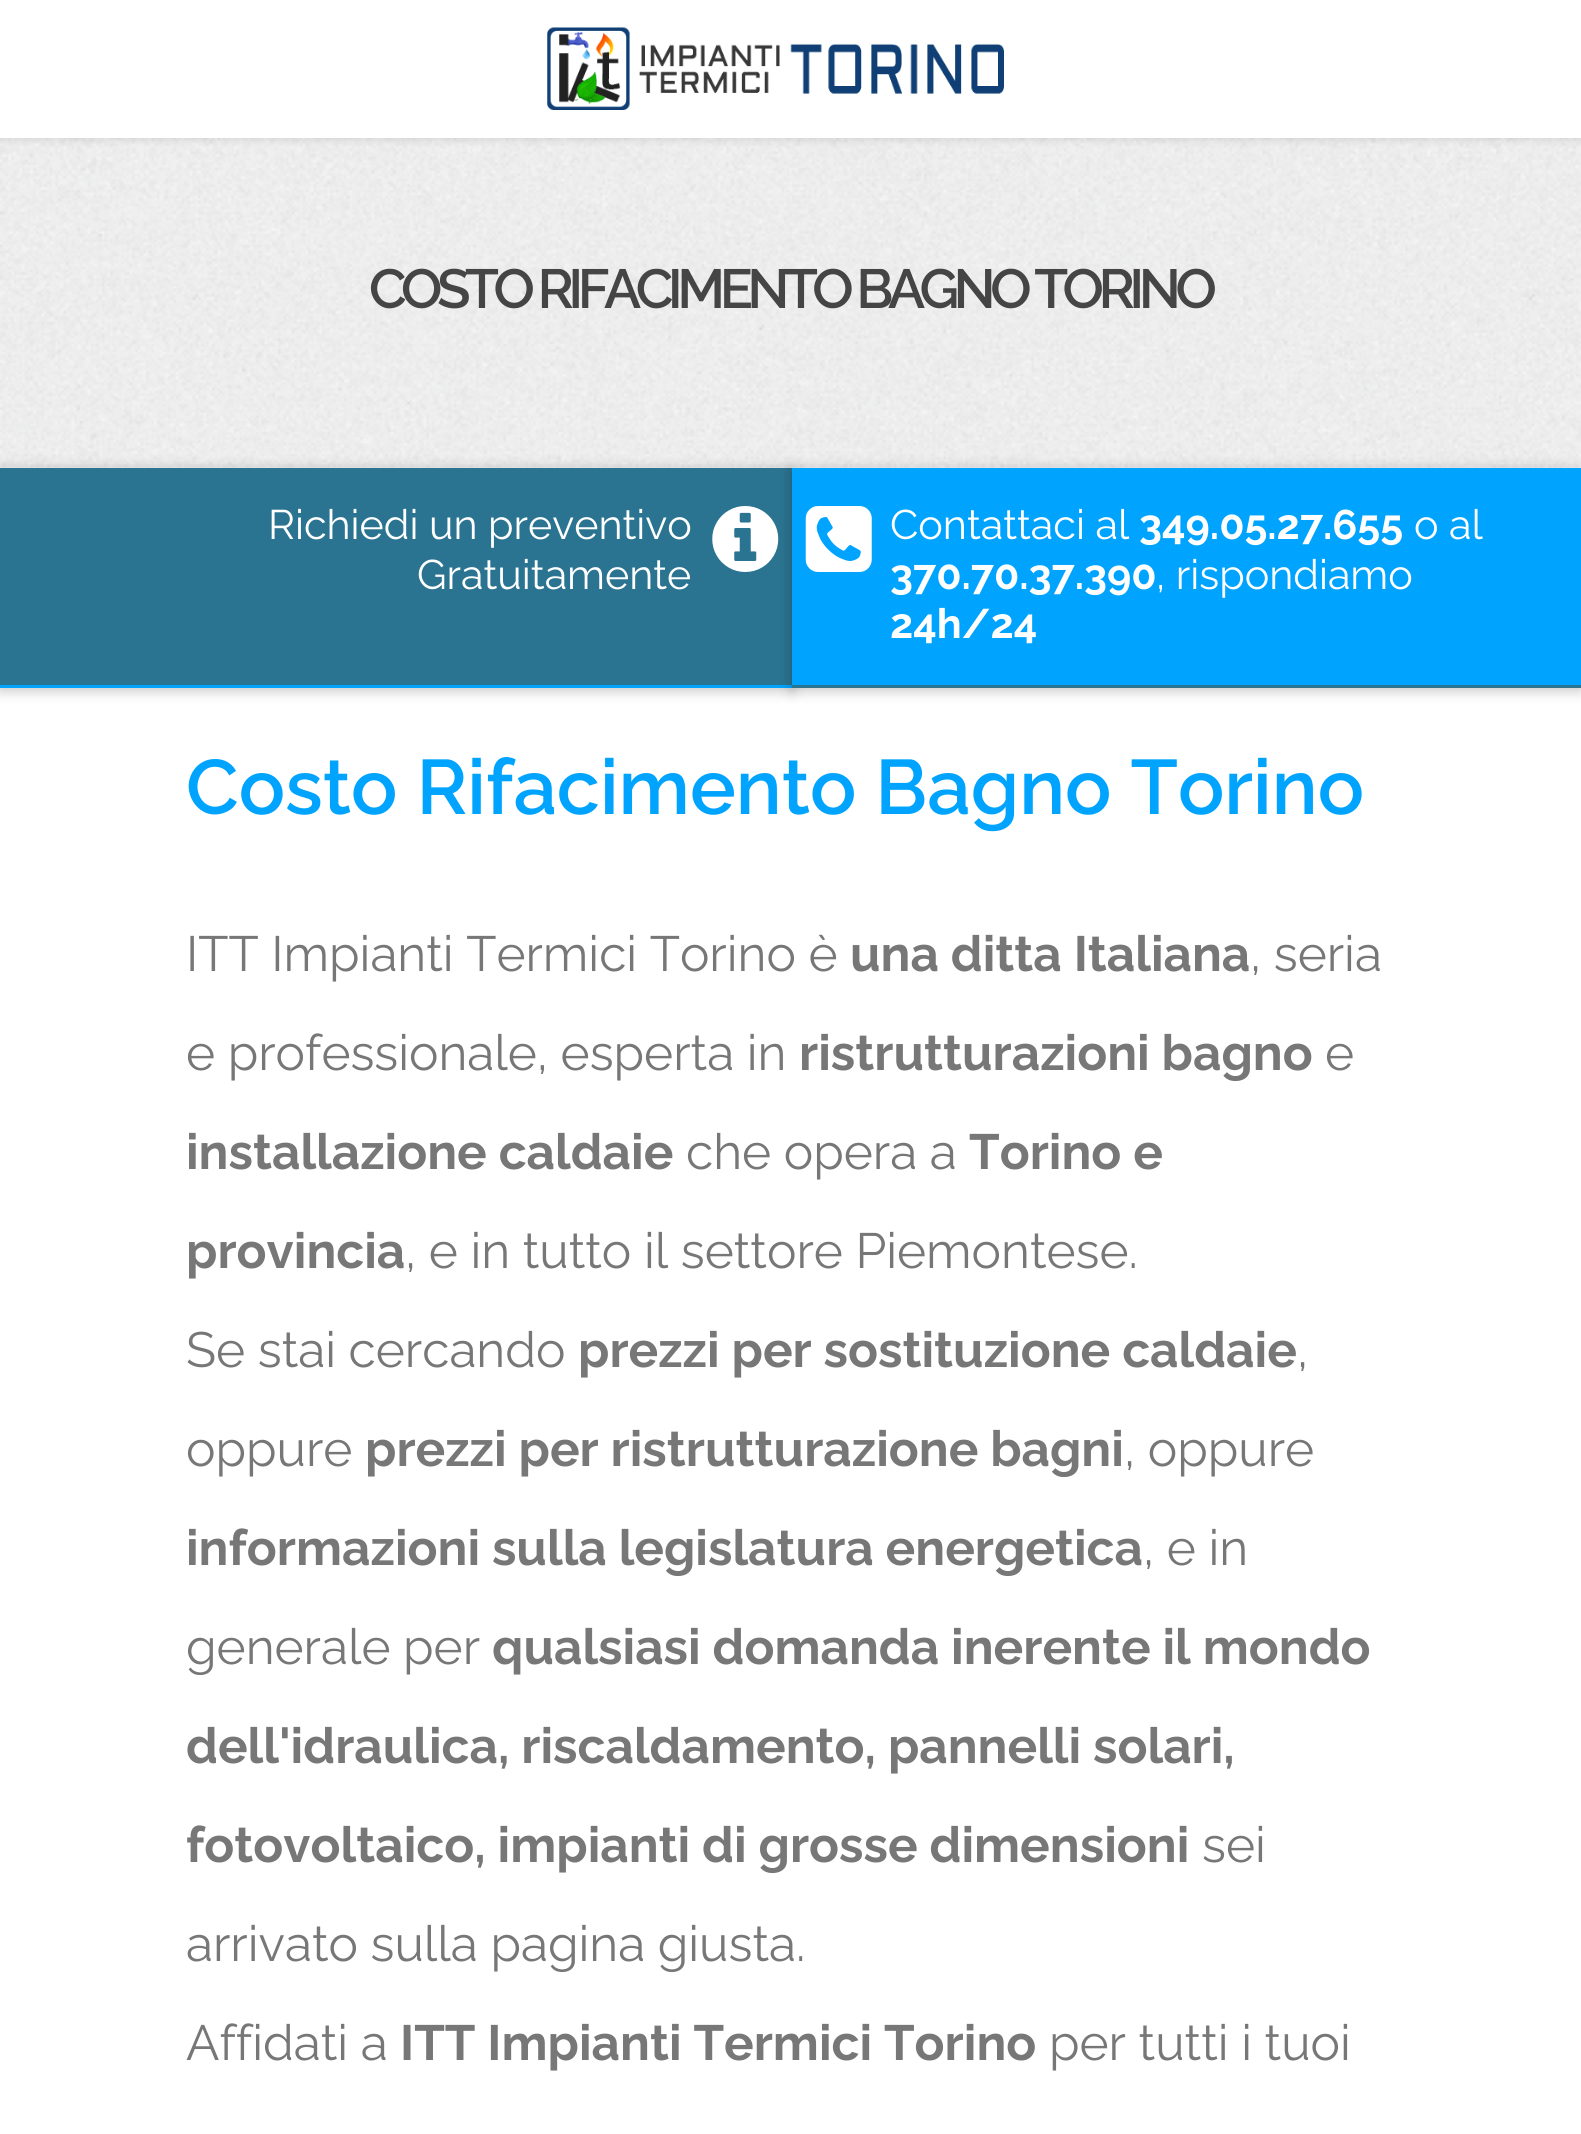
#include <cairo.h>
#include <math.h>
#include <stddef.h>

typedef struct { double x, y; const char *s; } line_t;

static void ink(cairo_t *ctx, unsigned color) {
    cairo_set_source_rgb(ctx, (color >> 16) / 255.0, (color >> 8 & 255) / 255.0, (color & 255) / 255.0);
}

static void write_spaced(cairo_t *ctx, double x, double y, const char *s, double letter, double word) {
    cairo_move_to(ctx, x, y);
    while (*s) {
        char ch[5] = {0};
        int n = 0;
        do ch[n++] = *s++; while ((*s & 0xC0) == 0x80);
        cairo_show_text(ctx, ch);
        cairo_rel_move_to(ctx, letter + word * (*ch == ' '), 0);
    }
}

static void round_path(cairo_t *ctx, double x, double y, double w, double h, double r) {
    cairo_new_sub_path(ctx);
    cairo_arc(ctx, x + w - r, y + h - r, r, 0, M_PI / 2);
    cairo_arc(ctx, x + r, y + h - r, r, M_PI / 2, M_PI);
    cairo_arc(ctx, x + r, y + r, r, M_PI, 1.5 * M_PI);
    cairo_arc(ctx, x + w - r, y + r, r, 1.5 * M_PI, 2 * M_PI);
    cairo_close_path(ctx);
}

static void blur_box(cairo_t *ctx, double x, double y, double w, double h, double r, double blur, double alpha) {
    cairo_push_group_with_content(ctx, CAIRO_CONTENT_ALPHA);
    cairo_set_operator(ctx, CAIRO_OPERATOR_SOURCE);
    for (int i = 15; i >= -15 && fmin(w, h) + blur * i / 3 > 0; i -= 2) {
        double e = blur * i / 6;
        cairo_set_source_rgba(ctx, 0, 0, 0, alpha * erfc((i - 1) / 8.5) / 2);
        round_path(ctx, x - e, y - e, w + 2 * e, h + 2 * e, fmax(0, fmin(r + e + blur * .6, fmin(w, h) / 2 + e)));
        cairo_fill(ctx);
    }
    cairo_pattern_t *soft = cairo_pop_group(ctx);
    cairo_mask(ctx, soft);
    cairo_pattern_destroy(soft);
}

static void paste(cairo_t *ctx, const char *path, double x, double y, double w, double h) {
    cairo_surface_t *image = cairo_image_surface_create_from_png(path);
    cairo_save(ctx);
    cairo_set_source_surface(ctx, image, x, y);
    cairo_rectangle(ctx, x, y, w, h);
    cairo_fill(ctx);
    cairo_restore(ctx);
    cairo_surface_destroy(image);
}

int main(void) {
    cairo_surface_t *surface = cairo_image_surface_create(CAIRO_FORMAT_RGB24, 1581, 2134);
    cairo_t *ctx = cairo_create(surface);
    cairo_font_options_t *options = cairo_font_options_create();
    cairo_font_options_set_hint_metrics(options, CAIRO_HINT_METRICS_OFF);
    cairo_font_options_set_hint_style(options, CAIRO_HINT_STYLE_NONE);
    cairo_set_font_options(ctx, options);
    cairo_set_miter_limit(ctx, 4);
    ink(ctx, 0xFFFFFF);
    cairo_paint(ctx);
    paste(ctx, "media/2.png", 0, 138, 1581, 330);
    ink(ctx, 0x000000);
    blur_box(ctx, 0, 3, 1581, 137, 0, 4, 0.11);
    ink(ctx, 0xFFFFFF);
    cairo_rectangle(ctx, 0, 0, 1581, 138);
    cairo_fill(ctx);
    paste(ctx, "media/1.png", 547, 27, 457, 83);
    cairo_select_font_face(ctx, "Raleway SemiBold", CAIRO_FONT_SLANT_NORMAL, CAIRO_FONT_WEIGHT_NORMAL);
    cairo_set_font_size(ctx, 55);
    ink(ctx, 0x454545);
    write_spaced(ctx, 369, 308, "COSTO RIFACIMENTO BAGNO TORINO", -5.5, 0);
    ink(ctx, 0x000000);
    blur_box(ctx, 0, 470, 792, 220, 0, 7, 0.25);
    ink(ctx, 0x2B7491);
    cairo_rectangle(ctx, 0, 468, 792, 217);
    cairo_fill(ctx);
    ink(ctx, 0x00A4FF);
    cairo_rectangle(ctx, 0, 685, 792, 3);
    cairo_fill(ctx);
    cairo_select_font_face(ctx, "Raleway", CAIRO_FONT_SLANT_NORMAL, CAIRO_FONT_WEIGHT_NORMAL);
    cairo_set_font_size(ctx, 41.25);
    ink(ctx, 0xFFFFFF);
    cairo_move_to(ctx, 268, 539);
    cairo_show_text(ctx, "Richiedi un preventivo");
    paste(ctx, "media/3.png", 712, 506, 67, 66);
    cairo_move_to(ctx, 417, 589);
    cairo_show_text(ctx, "Gratuitamente");
    ink(ctx, 0x000000);
    blur_box(ctx, 792, 470, 789, 220, 0, 7, 0.25);
    ink(ctx, 0x00A4FF);
    cairo_rectangle(ctx, 792, 468, 789, 217);
    cairo_fill(ctx);
    ink(ctx, 0x2B7491);
    cairo_rectangle(ctx, 792, 685, 789, 3);
    cairo_fill(ctx);
    paste(ctx, "media/4.png", 805, 506, 67, 66);
    ink(ctx, 0xFFFFFF);
    cairo_move_to(ctx, 890, 539);
    cairo_show_text(ctx, "Contattaci al");
    cairo_select_font_face(ctx, "Raleway", CAIRO_FONT_SLANT_NORMAL, CAIRO_FONT_WEIGHT_BOLD);
    cairo_move_to(ctx, 1139, 539);
    cairo_show_text(ctx, "349.05.27.655");
    cairo_select_font_face(ctx, "Raleway", CAIRO_FONT_SLANT_NORMAL, CAIRO_FONT_WEIGHT_NORMAL);
    cairo_move_to(ctx, 1414, 539);
    cairo_show_text(ctx, "o al");
    cairo_select_font_face(ctx, "Raleway", CAIRO_FONT_SLANT_NORMAL, CAIRO_FONT_WEIGHT_BOLD);
    cairo_move_to(ctx, 890, 589);
    cairo_show_text(ctx, "370.70.37.390");
    cairo_select_font_face(ctx, "Raleway", CAIRO_FONT_SLANT_NORMAL, CAIRO_FONT_WEIGHT_NORMAL);
    cairo_move_to(ctx, 1156, 589);
    cairo_show_text(ctx, ", rispondiamo");
    cairo_select_font_face(ctx, "Raleway", CAIRO_FONT_SLANT_NORMAL, CAIRO_FONT_WEIGHT_BOLD);
    cairo_move_to(ctx, 890, 638);
    cairo_show_text(ctx, "24h/24");
    cairo_select_font_face(ctx, "Raleway SemiBold", CAIRO_FONT_SLANT_NORMAL, CAIRO_FONT_WEIGHT_NORMAL);
    cairo_set_font_size(ctx, 77);
    ink(ctx, 0x00A4FF);
    cairo_move_to(ctx, 186, 814);
    cairo_show_text(ctx, "Costo Rifacimento Bagno Torino");
    cairo_select_font_face(ctx, "Raleway", CAIRO_FONT_SLANT_NORMAL, CAIRO_FONT_WEIGHT_NORMAL);
    cairo_set_font_size(ctx, 49.5);
    ink(ctx, 0x777777);
    cairo_move_to(ctx, 186, 971);
    cairo_show_text(ctx, "ITT Impianti Termici Torino è");
    cairo_select_font_face(ctx, "Raleway", CAIRO_FONT_SLANT_NORMAL, CAIRO_FONT_WEIGHT_BOLD);
    cairo_move_to(ctx, 850, 971);
    cairo_show_text(ctx, "una ditta Italiana");
    cairo_select_font_face(ctx, "Raleway", CAIRO_FONT_SLANT_NORMAL, CAIRO_FONT_WEIGHT_NORMAL);
    cairo_move_to(ctx, 1250, 971);
    cairo_show_text(ctx, ", seria");
    cairo_move_to(ctx, 186, 1070);
    cairo_show_text(ctx, "e professionale, esperta in");
    cairo_select_font_face(ctx, "Raleway", CAIRO_FONT_SLANT_NORMAL, CAIRO_FONT_WEIGHT_BOLD);
    cairo_move_to(ctx, 799, 1070);
    cairo_show_text(ctx, "ristrutturazioni bagno");
    cairo_select_font_face(ctx, "Raleway", CAIRO_FONT_SLANT_NORMAL, CAIRO_FONT_WEIGHT_NORMAL);
    cairo_move_to(ctx, 1325, 1070);
    cairo_show_text(ctx, "e");
    cairo_select_font_face(ctx, "Raleway", CAIRO_FONT_SLANT_NORMAL, CAIRO_FONT_WEIGHT_BOLD);
    cairo_move_to(ctx, 186, 1169);
    cairo_show_text(ctx, "installazione caldaie");
    cairo_select_font_face(ctx, "Raleway", CAIRO_FONT_SLANT_NORMAL, CAIRO_FONT_WEIGHT_NORMAL);
    cairo_move_to(ctx, 686, 1169);
    cairo_show_text(ctx, "che opera a");
    cairo_select_font_face(ctx, "Raleway", CAIRO_FONT_SLANT_NORMAL, CAIRO_FONT_WEIGHT_BOLD);
    cairo_move_to(ctx, 969, 1169);
    cairo_show_text(ctx, "Torino e");
    cairo_move_to(ctx, 186, 1268);
    cairo_show_text(ctx, "provincia");
    cairo_select_font_face(ctx, "Raleway", CAIRO_FONT_SLANT_NORMAL, CAIRO_FONT_WEIGHT_NORMAL);
    cairo_move_to(ctx, 405, 1268);
    cairo_show_text(ctx, ", e in tutto il settore Piemontese.");
    cairo_move_to(ctx, 186, 1367);
    cairo_show_text(ctx, "Se stai cercando");
    cairo_select_font_face(ctx, "Raleway", CAIRO_FONT_SLANT_NORMAL, CAIRO_FONT_WEIGHT_BOLD);
    cairo_move_to(ctx, 578, 1367);
    cairo_show_text(ctx, "prezzi per sostituzione caldaie");
    cairo_select_font_face(ctx, "Raleway", CAIRO_FONT_SLANT_NORMAL, CAIRO_FONT_WEIGHT_NORMAL);
    cairo_move_to(ctx, 1297, 1367);
    cairo_show_text(ctx, ",");
    cairo_move_to(ctx, 186, 1466);
    cairo_show_text(ctx, "oppure");
    cairo_select_font_face(ctx, "Raleway", CAIRO_FONT_SLANT_NORMAL, CAIRO_FONT_WEIGHT_BOLD);
    cairo_move_to(ctx, 365, 1466);
    cairo_show_text(ctx, "prezzi per ristrutturazione bagni");
    cairo_select_font_face(ctx, "Raleway", CAIRO_FONT_SLANT_NORMAL, CAIRO_FONT_WEIGHT_NORMAL);
    cairo_move_to(ctx, 1124, 1466);
    cairo_show_text(ctx, ", oppure");
    cairo_select_font_face(ctx, "Raleway", CAIRO_FONT_SLANT_NORMAL, CAIRO_FONT_WEIGHT_BOLD);
    cairo_move_to(ctx, 186, 1565);
    cairo_show_text(ctx, "informazioni sulla legislatura energetica");
    cairo_select_font_face(ctx, "Raleway", CAIRO_FONT_SLANT_NORMAL, CAIRO_FONT_WEIGHT_NORMAL);
    cairo_move_to(ctx, 1143, 1565);
    cairo_show_text(ctx, ", e in");
    cairo_move_to(ctx, 186, 1664);
    cairo_show_text(ctx, "generale per");
    cairo_select_font_face(ctx, "Raleway", CAIRO_FONT_SLANT_NORMAL, CAIRO_FONT_WEIGHT_BOLD);
    {
        static const line_t items[] = {
            {492, 1664, "qualsiasi domanda inerente il mondo"},
            {186, 1763, "dell'idraulica, riscaldamento, pannelli solari,"},
            {186, 1862, "fotovoltaico, impianti di grosse dimensioni"},
        };
        for (size_t i = 0; i < sizeof items / sizeof *items; i++) {
            cairo_move_to(ctx, items[i].x, items[i].y);
            cairo_show_text(ctx, items[i].s);
        }
    }
    cairo_select_font_face(ctx, "Raleway", CAIRO_FONT_SLANT_NORMAL, CAIRO_FONT_WEIGHT_NORMAL);
    {
        static const line_t items[] = {
            {1202, 1862, "sei"},
            {186, 1961, "arrivato sulla pagina giusta."},
            {186, 2060, "Affidati a"},
        };
        for (size_t i = 0; i < sizeof items / sizeof *items; i++) {
            cairo_move_to(ctx, items[i].x, items[i].y);
            cairo_show_text(ctx, items[i].s);
        }
    }
    cairo_select_font_face(ctx, "Raleway", CAIRO_FONT_SLANT_NORMAL, CAIRO_FONT_WEIGHT_BOLD);
    cairo_move_to(ctx, 400, 2060);
    cairo_show_text(ctx, "ITT Impianti Termici Torino");
    cairo_select_font_face(ctx, "Raleway", CAIRO_FONT_SLANT_NORMAL, CAIRO_FONT_WEIGHT_NORMAL);
    cairo_move_to(ctx, 1049, 2060);
    cairo_show_text(ctx, "per tutti i tuoi");
    cairo_surface_write_to_png(surface, "image.png");
    cairo_font_options_destroy(options);
    cairo_destroy(ctx);
    cairo_surface_destroy(surface);
    return 0;
}
